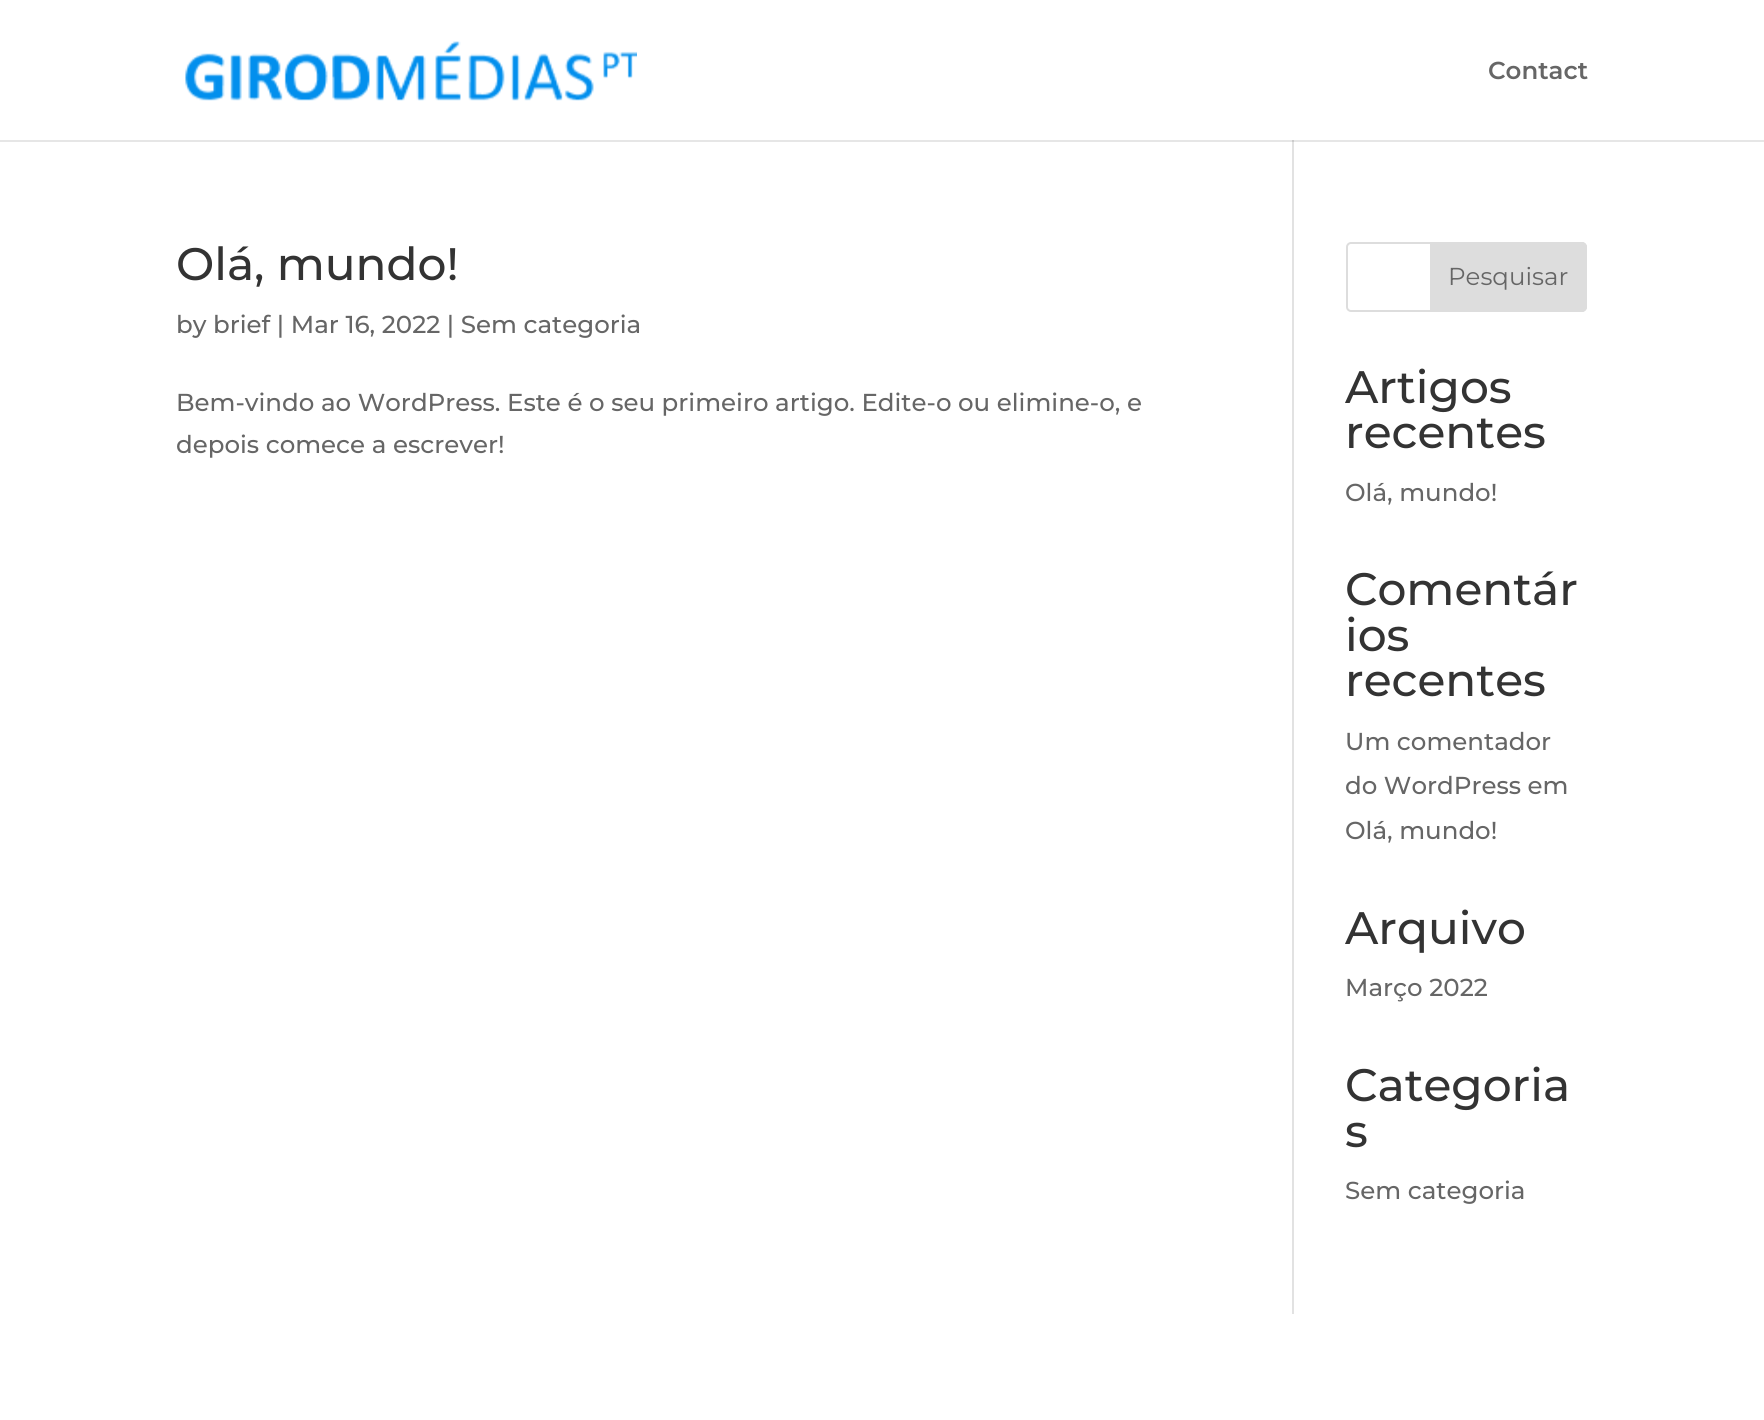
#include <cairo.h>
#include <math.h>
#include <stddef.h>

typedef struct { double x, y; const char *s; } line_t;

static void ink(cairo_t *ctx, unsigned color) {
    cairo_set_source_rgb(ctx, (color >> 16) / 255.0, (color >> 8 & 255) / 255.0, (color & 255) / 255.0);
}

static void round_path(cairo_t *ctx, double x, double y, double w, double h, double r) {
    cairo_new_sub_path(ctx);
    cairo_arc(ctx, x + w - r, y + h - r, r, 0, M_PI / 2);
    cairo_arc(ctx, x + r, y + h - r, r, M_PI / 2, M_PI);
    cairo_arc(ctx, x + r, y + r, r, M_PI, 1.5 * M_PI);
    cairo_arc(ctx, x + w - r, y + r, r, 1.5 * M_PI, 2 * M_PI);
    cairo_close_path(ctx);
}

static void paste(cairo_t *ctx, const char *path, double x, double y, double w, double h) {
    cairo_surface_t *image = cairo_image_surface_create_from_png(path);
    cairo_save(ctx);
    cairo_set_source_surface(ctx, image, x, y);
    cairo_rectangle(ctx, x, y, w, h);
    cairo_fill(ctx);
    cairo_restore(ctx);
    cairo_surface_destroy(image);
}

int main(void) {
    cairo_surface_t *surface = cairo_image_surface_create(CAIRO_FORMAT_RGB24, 1764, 1420);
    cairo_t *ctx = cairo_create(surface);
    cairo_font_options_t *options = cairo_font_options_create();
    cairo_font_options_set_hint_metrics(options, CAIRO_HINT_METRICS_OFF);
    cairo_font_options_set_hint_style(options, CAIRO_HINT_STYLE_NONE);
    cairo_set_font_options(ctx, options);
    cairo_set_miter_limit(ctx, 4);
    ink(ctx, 0xFFFFFF);
    cairo_paint(ctx);
    ink(ctx, 0xE6E6E6);
    cairo_rectangle(ctx, 0, 140, 1764, 2);
    cairo_fill(ctx);
    paste(ctx, "media/1.png", 185, 41, 452, 60);
    cairo_select_font_face(ctx, "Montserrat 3 Thin", CAIRO_FONT_SLANT_NORMAL, CAIRO_FONT_WEIGHT_NORMAL);
    cairo_set_font_size(ctx, 24.5);
    ink(ctx, 0x666666);
    cairo_move_to(ctx, 1488, 79);
    cairo_show_text(ctx, "Contact");
    ink(ctx, 0xE2E2E2);
    cairo_rectangle(ctx, 1292, 140, 2, 1174);
    cairo_fill(ctx);
    ink(ctx, 0xCBCBCB);
    cairo_rectangle(ctx, 1292, 140, 2, 2);
    cairo_fill(ctx);
    cairo_select_font_face(ctx, "Montserrat Thin", CAIRO_FONT_SLANT_NORMAL, CAIRO_FONT_WEIGHT_NORMAL);
    cairo_set_font_size(ctx, 45.5);
    ink(ctx, 0x333333);
    cairo_move_to(ctx, 176, 280);
    cairo_show_text(ctx, "Olá, mundo!");
    cairo_set_font_size(ctx, 24.5);
    ink(ctx, 0x666666);
    {
        static const line_t items[] = {
            {176, 333, "by brief | Mar 16, 2022 | Sem categoria"},
            {176, 411, "Bem-vindo ao WordPress. Este é o seu primeiro artigo. Edite-o ou elimine-o, e"},
            {176, 453, "depois comece a escrever!"},
        };
        for (size_t i = 0; i < sizeof items / sizeof *items; i++) {
            cairo_move_to(ctx, items[i].x, items[i].y);
            cairo_show_text(ctx, items[i].s);
        }
    }
    round_path(ctx, 1347, 243, 239, 68, 4);
    ink(ctx, 0xDDDDDD);
    cairo_stroke(ctx);
    cairo_new_path(ctx);
    cairo_move_to(ctx, 1431, 243);
    cairo_line_to(ctx, 1582, 243);
    cairo_curve_to(ctx, 1584, 243, 1586, 245, 1586, 247);
    cairo_line_to(ctx, 1586, 307);
    cairo_curve_to(ctx, 1586, 309, 1584, 311, 1582, 311);
    cairo_line_to(ctx, 1431, 311);
    cairo_close_path(ctx);
    cairo_fill_preserve(ctx);
    cairo_stroke(ctx);
    cairo_select_font_face(ctx, "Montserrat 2 Thin", CAIRO_FONT_SLANT_NORMAL, CAIRO_FONT_WEIGHT_NORMAL);
    ink(ctx, 0x666666);
    cairo_move_to(ctx, 1448, 285);
    cairo_show_text(ctx, "Pesquisar");
    cairo_select_font_face(ctx, "Montserrat Thin", CAIRO_FONT_SLANT_NORMAL, CAIRO_FONT_WEIGHT_NORMAL);
    cairo_set_font_size(ctx, 45.5);
    ink(ctx, 0x333333);
    cairo_move_to(ctx, 1345, 403);
    cairo_show_text(ctx, "Artigos");
    cairo_move_to(ctx, 1345, 448);
    cairo_show_text(ctx, "recentes");
    cairo_set_font_size(ctx, 24.5);
    ink(ctx, 0x666666);
    cairo_move_to(ctx, 1345, 501);
    cairo_show_text(ctx, "Olá, mundo!");
    cairo_set_font_size(ctx, 45.5);
    ink(ctx, 0x333333);
    {
        static const line_t items[] = {
            {1345, 605, "Comentár"},
            {1345, 651, "ios"},
            {1345, 696, "recentes"},
        };
        for (size_t i = 0; i < sizeof items / sizeof *items; i++) {
            cairo_move_to(ctx, items[i].x, items[i].y);
            cairo_show_text(ctx, items[i].s);
        }
    }
    cairo_set_font_size(ctx, 24.5);
    ink(ctx, 0x666666);
    {
        static const line_t items[] = {
            {1345, 750, "Um comentador"},
            {1345, 794, "do WordPress em"},
            {1345, 839, "Olá, mundo!"},
        };
        for (size_t i = 0; i < sizeof items / sizeof *items; i++) {
            cairo_move_to(ctx, items[i].x, items[i].y);
            cairo_show_text(ctx, items[i].s);
        }
    }
    cairo_set_font_size(ctx, 45.5);
    ink(ctx, 0x333333);
    cairo_move_to(ctx, 1345, 944);
    cairo_show_text(ctx, "Arquivo");
    cairo_set_font_size(ctx, 24.5);
    ink(ctx, 0x666666);
    cairo_move_to(ctx, 1345, 996);
    cairo_show_text(ctx, "Março 2022");
    cairo_set_font_size(ctx, 45.5);
    ink(ctx, 0x333333);
    cairo_move_to(ctx, 1345, 1101);
    cairo_show_text(ctx, "Categoria");
    cairo_move_to(ctx, 1345, 1147);
    cairo_show_text(ctx, "s");
    cairo_set_font_size(ctx, 24.5);
    ink(ctx, 0x666666);
    cairo_move_to(ctx, 1345, 1199);
    cairo_show_text(ctx, "Sem categoria");
    cairo_surface_write_to_png(surface, "image.png");
    cairo_font_options_destroy(options);
    cairo_destroy(ctx);
    cairo_surface_destroy(surface);
    return 0;
}
